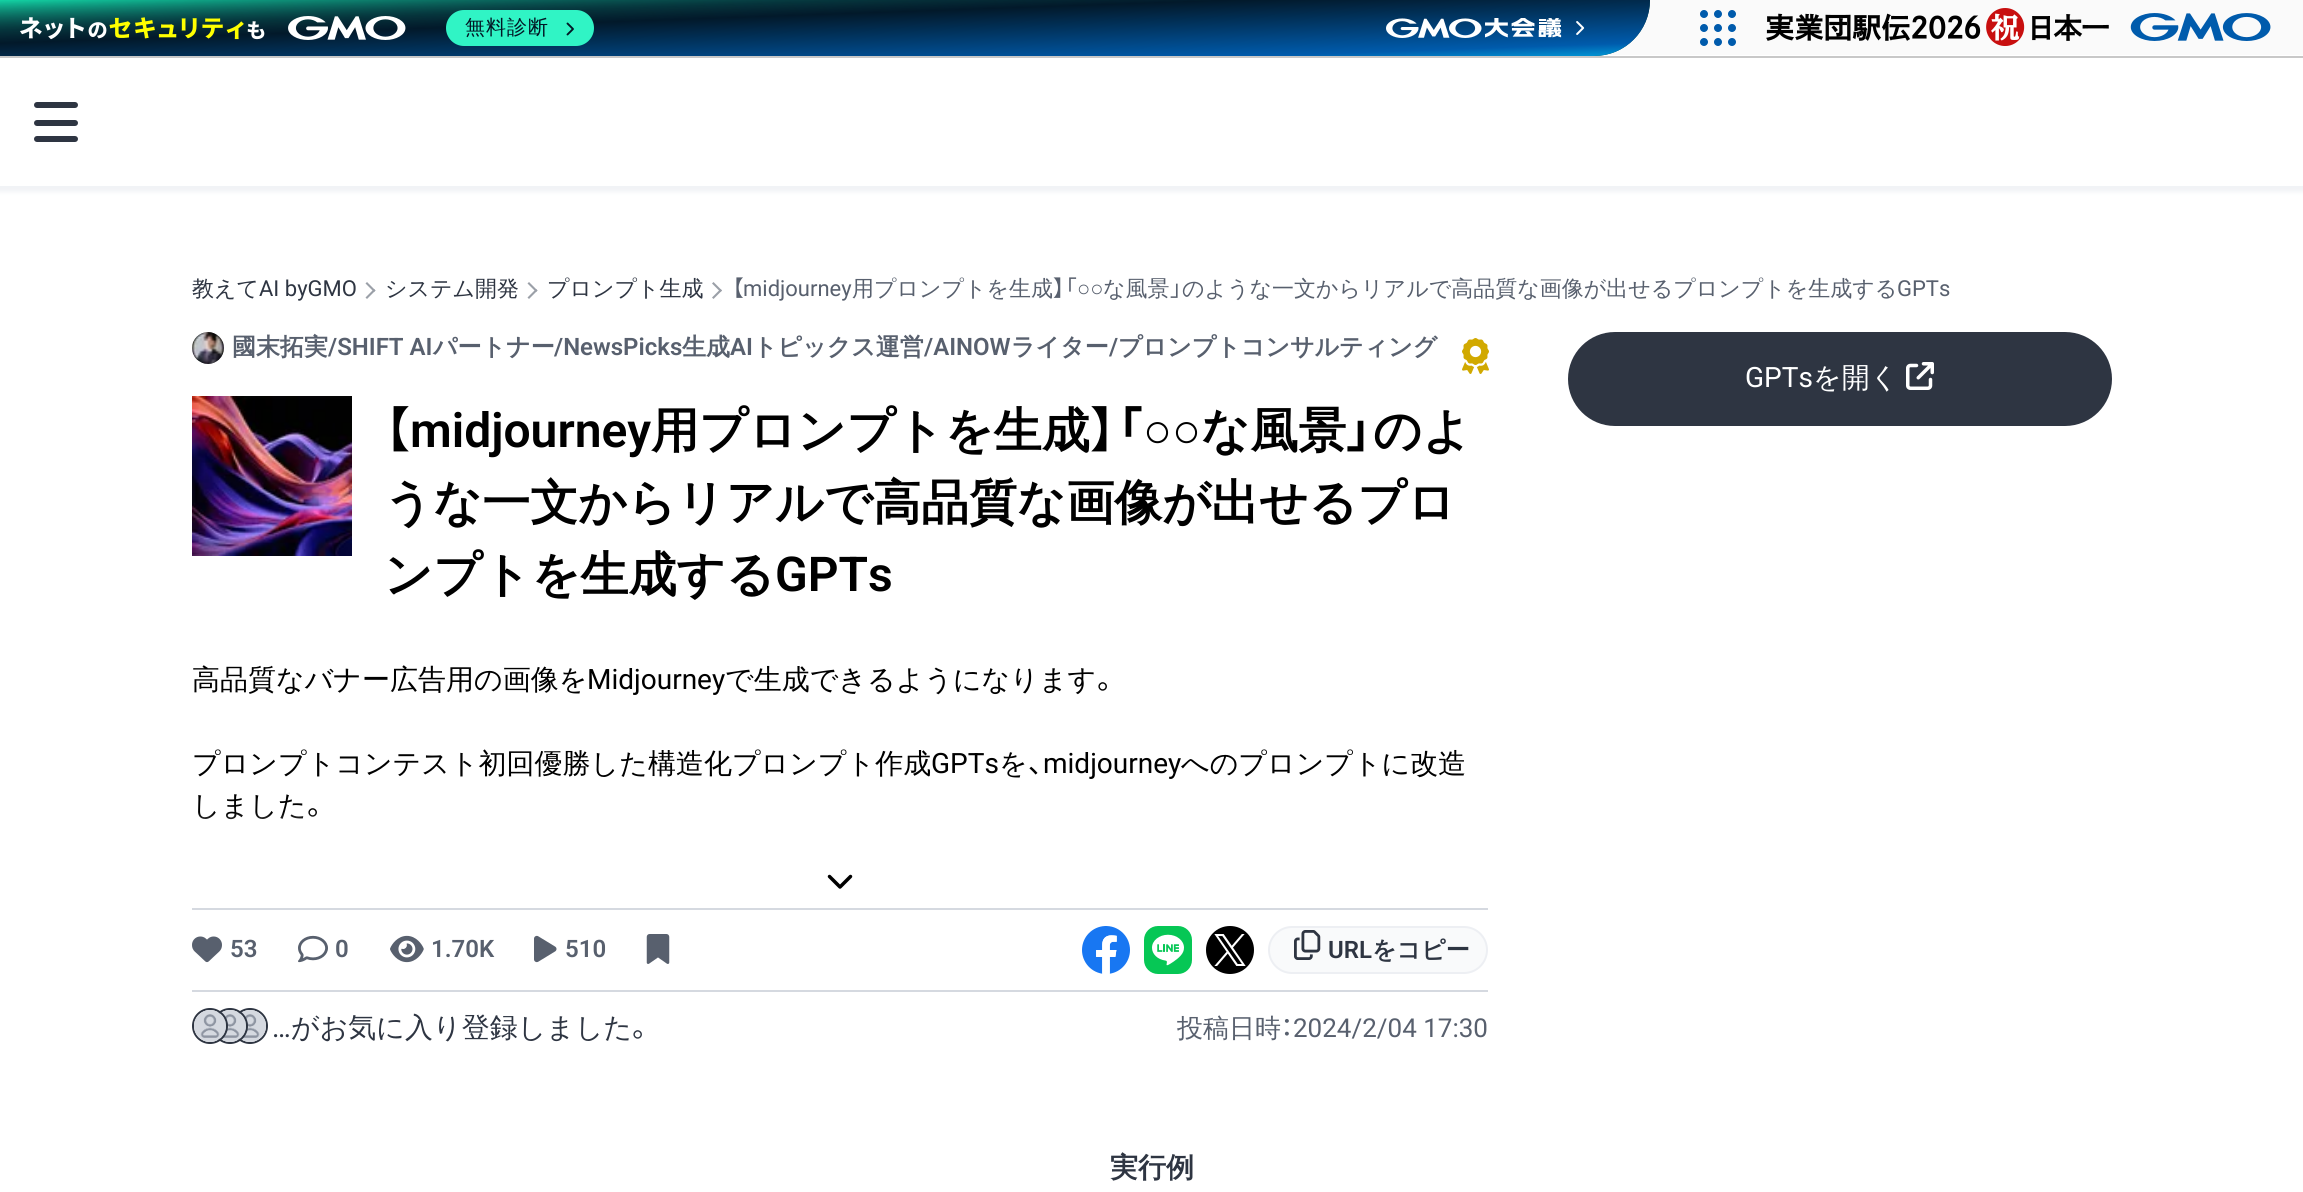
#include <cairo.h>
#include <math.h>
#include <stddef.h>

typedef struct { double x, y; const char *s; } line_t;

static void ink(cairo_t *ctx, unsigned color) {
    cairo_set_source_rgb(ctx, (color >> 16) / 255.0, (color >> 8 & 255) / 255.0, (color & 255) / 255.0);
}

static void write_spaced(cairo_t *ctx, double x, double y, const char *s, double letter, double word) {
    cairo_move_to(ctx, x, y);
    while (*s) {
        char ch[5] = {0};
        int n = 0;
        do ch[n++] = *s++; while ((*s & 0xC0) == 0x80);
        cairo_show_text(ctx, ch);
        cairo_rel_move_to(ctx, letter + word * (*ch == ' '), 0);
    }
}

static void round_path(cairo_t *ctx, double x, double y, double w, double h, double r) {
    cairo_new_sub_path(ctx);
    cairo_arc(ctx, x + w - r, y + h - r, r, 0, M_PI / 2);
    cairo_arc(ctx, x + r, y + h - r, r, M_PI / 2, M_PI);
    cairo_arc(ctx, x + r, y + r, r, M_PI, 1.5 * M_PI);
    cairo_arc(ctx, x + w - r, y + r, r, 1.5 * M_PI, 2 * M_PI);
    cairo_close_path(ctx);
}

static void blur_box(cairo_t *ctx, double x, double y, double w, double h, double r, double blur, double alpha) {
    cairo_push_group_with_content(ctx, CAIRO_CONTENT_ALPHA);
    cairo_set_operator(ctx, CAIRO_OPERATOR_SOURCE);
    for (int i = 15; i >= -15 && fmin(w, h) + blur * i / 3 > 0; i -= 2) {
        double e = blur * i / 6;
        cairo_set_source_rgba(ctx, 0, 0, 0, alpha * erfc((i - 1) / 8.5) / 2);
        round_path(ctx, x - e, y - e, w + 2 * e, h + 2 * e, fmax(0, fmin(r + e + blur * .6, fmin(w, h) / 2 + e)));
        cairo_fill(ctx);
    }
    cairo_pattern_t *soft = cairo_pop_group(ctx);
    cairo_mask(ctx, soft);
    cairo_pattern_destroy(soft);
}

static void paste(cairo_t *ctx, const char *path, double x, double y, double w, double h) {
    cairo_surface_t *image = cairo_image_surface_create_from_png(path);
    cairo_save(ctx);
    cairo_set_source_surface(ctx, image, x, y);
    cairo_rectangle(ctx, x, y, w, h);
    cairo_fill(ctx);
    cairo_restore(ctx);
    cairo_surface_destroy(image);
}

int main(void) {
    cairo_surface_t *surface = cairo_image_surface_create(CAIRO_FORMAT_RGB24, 2303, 1192);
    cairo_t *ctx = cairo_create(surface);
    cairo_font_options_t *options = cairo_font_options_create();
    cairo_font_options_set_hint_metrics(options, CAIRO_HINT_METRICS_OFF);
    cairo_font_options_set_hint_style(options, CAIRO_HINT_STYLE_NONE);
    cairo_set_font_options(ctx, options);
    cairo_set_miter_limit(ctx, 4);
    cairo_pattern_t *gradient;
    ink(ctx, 0xFFFFFF);
    cairo_paint(ctx);
    cairo_save(ctx);
    cairo_rectangle(ctx, 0, 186, 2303, 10);
    cairo_clip(ctx);
    ink(ctx, 0xF1F3F6);
    blur_box(ctx, -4, 56, 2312, 136, 0, 2, 1);
    cairo_restore(ctx);
    ink(ctx, 0xFAFAFA);
    cairo_rectangle(ctx, 1594, 0, 709, 55);
    cairo_fill(ctx);
    ink(ctx, 0xC8C8C8);
    cairo_rectangle(ctx, 0, 56, 2303, 2);
    cairo_fill(ctx);
    gradient = cairo_pattern_create_linear(823, -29, 827, 85);
    cairo_pattern_add_color_stop_rgba(gradient, 0, 0.075, 0.831, 0.647, 1);
    cairo_pattern_add_color_stop_rgba(gradient, 0.26, 0.055, 0.451, 0.396, 1);
    cairo_pattern_add_color_stop_rgba(gradient, 0.62, 0.043, 0.302, 0.294, 1);
    cairo_set_source(ctx, gradient);
    cairo_pattern_destroy(gradient);
    cairo_new_path(ctx);
    cairo_move_to(ctx, 0, 0);
    cairo_line_to(ctx, 1650, 0);
    cairo_curve_to(ctx, 1650, 31, 1625, 56, 1594, 56);
    cairo_line_to(ctx, 0, 56);
    cairo_close_path(ctx);
    cairo_fill(ctx);
    gradient = cairo_pattern_create_linear(827, 85, 823, -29);
    cairo_pattern_add_color_stop_rgba(gradient, 0, 0.004, 0.612, 0.851, 1);
    cairo_pattern_add_color_stop_rgba(gradient, 0.12, 0, 0.357, 0.675, 1);
    cairo_pattern_add_color_stop_rgba(gradient, 0.62, 0.008, 0.098, 0.165, 1);
    cairo_pattern_add_color_stop_rgba(gradient, 1, 0.008, 0.098, 0.165, 0);
    cairo_set_source(ctx, gradient);
    cairo_pattern_destroy(gradient);
    cairo_new_path(ctx);
    cairo_move_to(ctx, 0, 0);
    cairo_line_to(ctx, 1650, 0);
    cairo_curve_to(ctx, 1650, 31, 1625, 56, 1594, 56);
    cairo_line_to(ctx, 0, 56);
    cairo_close_path(ctx);
    cairo_fill(ctx);
    paste(ctx, "media/1.png", 20, 16, 386, 24);
    ink(ctx, 0x30F4C5);
    round_path(ctx, 446, 10, 148, 36, 18);
    cairo_fill(ctx);
    cairo_select_font_face(ctx, "WenQuanYi Zen Hei Medium", CAIRO_FONT_SLANT_NORMAL, CAIRO_FONT_WEIGHT_NORMAL);
    cairo_set_font_size(ctx, 20);
    ink(ctx, 0x021725);
    write_spaced(ctx, 465, 34, "無料診断", 1, 0);
    cairo_new_path(ctx);
    cairo_move_to(ctx, 567.5, 23.5);
    cairo_line_to(ctx, 573, 29);
    cairo_line_to(ctx, 567.5, 34.5);
    cairo_set_line_width(ctx, 1.9);
    cairo_set_line_cap(ctx, CAIRO_LINE_CAP_ROUND);
    cairo_set_line_join(ctx, CAIRO_LINE_JOIN_ROUND);
    cairo_stroke(ctx);
    paste(ctx, "media/2.png", 1386, 18, 199, 20);
    paste(ctx, "media/3.png", 1700, 10, 36, 36);
    paste(ctx, "media/4.png", 1766, 8, 505, 38);
    ink(ctx, 0x2E3542);
    round_path(ctx, 34, 102, 44, 6, 3);
    cairo_fill(ctx);
    round_path(ctx, 34, 120, 44, 6, 3);
    cairo_fill(ctx);
    round_path(ctx, 34, 136, 44, 6, 3);
    cairo_fill(ctx);
    cairo_set_font_size(ctx, 22);
    cairo_move_to(ctx, 192, 296);
    cairo_show_text(ctx, "教えて");
    cairo_select_font_face(ctx, "Roboto", CAIRO_FONT_SLANT_NORMAL, CAIRO_FONT_WEIGHT_NORMAL);
    cairo_move_to(ctx, 259, 296);
    cairo_show_text(ctx, "AI byGMO");
    ink(ctx, 0x9BA0A8);
    cairo_new_path(ctx);
    cairo_move_to(ctx, 367, 282);
    cairo_line_to(ctx, 375.5, 290.5);
    cairo_line_to(ctx, 374, 292);
    cairo_line_to(ctx, 365.5, 283.5);
    cairo_close_path(ctx);
    cairo_fill(ctx);
    cairo_new_path(ctx);
    cairo_move_to(ctx, 374, 289);
    cairo_line_to(ctx, 375.5, 290.5);
    cairo_line_to(ctx, 367, 299);
    cairo_line_to(ctx, 365.5, 297.5);
    cairo_close_path(ctx);
    cairo_fill(ctx);
    cairo_select_font_face(ctx, "WenQuanYi Zen Hei Medium", CAIRO_FONT_SLANT_NORMAL, CAIRO_FONT_WEIGHT_NORMAL);
    ink(ctx, 0x2E3542);
    cairo_move_to(ctx, 385, 296);
    cairo_show_text(ctx, "システム開発");
    ink(ctx, 0x9BA0A8);
    cairo_new_path(ctx);
    cairo_move_to(ctx, 529, 282);
    cairo_line_to(ctx, 537.5, 290.5);
    cairo_line_to(ctx, 536, 292);
    cairo_line_to(ctx, 527.5, 283.5);
    cairo_close_path(ctx);
    cairo_fill(ctx);
    cairo_new_path(ctx);
    cairo_move_to(ctx, 536, 289);
    cairo_line_to(ctx, 537.5, 290.5);
    cairo_line_to(ctx, 529, 299);
    cairo_line_to(ctx, 527.5, 297.5);
    cairo_close_path(ctx);
    cairo_fill(ctx);
    ink(ctx, 0x2E3542);
    cairo_move_to(ctx, 547, 296);
    cairo_show_text(ctx, "プロンプト生成");
    ink(ctx, 0x9BA0A8);
    cairo_new_path(ctx);
    cairo_move_to(ctx, 713.5, 282);
    cairo_line_to(ctx, 722, 290.5);
    cairo_line_to(ctx, 720.5, 292);
    cairo_line_to(ctx, 712, 283.5);
    cairo_close_path(ctx);
    cairo_fill(ctx);
    cairo_new_path(ctx);
    cairo_move_to(ctx, 720.5, 289);
    cairo_line_to(ctx, 722, 290.5);
    cairo_line_to(ctx, 713.5, 299);
    cairo_line_to(ctx, 712, 297.5);
    cairo_close_path(ctx);
    cairo_fill(ctx);
    cairo_select_font_face(ctx, "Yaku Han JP", CAIRO_FONT_SLANT_NORMAL, CAIRO_FONT_WEIGHT_NORMAL);
    ink(ctx, 0x58606E);
    cairo_move_to(ctx, 732, 296);
    cairo_show_text(ctx, "【");
    cairo_select_font_face(ctx, "Roboto", CAIRO_FONT_SLANT_NORMAL, CAIRO_FONT_WEIGHT_NORMAL);
    cairo_move_to(ctx, 743, 296);
    cairo_show_text(ctx, "midjourney");
    cairo_select_font_face(ctx, "WenQuanYi Zen Hei Medium", CAIRO_FONT_SLANT_NORMAL, CAIRO_FONT_WEIGHT_NORMAL);
    cairo_move_to(ctx, 852, 296);
    cairo_show_text(ctx, "用プロンプトを生成");
    cairo_select_font_face(ctx, "Yaku Han JP", CAIRO_FONT_SLANT_NORMAL, CAIRO_FONT_WEIGHT_NORMAL);
    cairo_move_to(ctx, 1053, 296);
    cairo_show_text(ctx, "】「");
    cairo_select_font_face(ctx, "Liberation Sans", CAIRO_FONT_SLANT_NORMAL, CAIRO_FONT_WEIGHT_NORMAL);
    cairo_move_to(ctx, 1077, 296);
    cairo_show_text(ctx, "○○");
    cairo_select_font_face(ctx, "WenQuanYi Zen Hei Medium", CAIRO_FONT_SLANT_NORMAL, CAIRO_FONT_WEIGHT_NORMAL);
    cairo_move_to(ctx, 1103, 296);
    cairo_show_text(ctx, "な風景");
    cairo_select_font_face(ctx, "Yaku Han JP", CAIRO_FONT_SLANT_NORMAL, CAIRO_FONT_WEIGHT_NORMAL);
    cairo_move_to(ctx, 1170, 296);
    cairo_show_text(ctx, "」");
    cairo_select_font_face(ctx, "WenQuanYi Zen Hei Medium", CAIRO_FONT_SLANT_NORMAL, CAIRO_FONT_WEIGHT_NORMAL);
    cairo_move_to(ctx, 1182, 296);
    cairo_show_text(ctx, "のような一文からリアルで高品質な画像が出せるプロンプトを生成する");
    cairo_select_font_face(ctx, "Roboto", CAIRO_FONT_SLANT_NORMAL, CAIRO_FONT_WEIGHT_NORMAL);
    cairo_move_to(ctx, 1897, 296);
    cairo_show_text(ctx, "GPTs");
    paste(ctx, "media/5.png", 192, 332, 32, 32);
    cairo_select_font_face(ctx, "WenQuanYi Zen Hei", CAIRO_FONT_SLANT_NORMAL, CAIRO_FONT_WEIGHT_BOLD);
    cairo_set_font_size(ctx, 24);
    cairo_move_to(ctx, 232, 355);
    cairo_show_text(ctx, "國末拓実");
    cairo_select_font_face(ctx, "Roboto SemiBold", CAIRO_FONT_SLANT_NORMAL, CAIRO_FONT_WEIGHT_NORMAL);
    cairo_move_to(ctx, 328, 355);
    cairo_show_text(ctx, "/SHIFT AI");
    cairo_select_font_face(ctx, "WenQuanYi Zen Hei", CAIRO_FONT_SLANT_NORMAL, CAIRO_FONT_WEIGHT_BOLD);
    cairo_move_to(ctx, 433, 355);
    cairo_show_text(ctx, "パートナー");
    cairo_select_font_face(ctx, "Roboto SemiBold", CAIRO_FONT_SLANT_NORMAL, CAIRO_FONT_WEIGHT_NORMAL);
    cairo_move_to(ctx, 554, 355);
    cairo_show_text(ctx, "/NewsPicks");
    cairo_select_font_face(ctx, "WenQuanYi Zen Hei", CAIRO_FONT_SLANT_NORMAL, CAIRO_FONT_WEIGHT_BOLD);
    cairo_move_to(ctx, 682, 355);
    cairo_show_text(ctx, "生成");
    cairo_select_font_face(ctx, "Roboto SemiBold", CAIRO_FONT_SLANT_NORMAL, CAIRO_FONT_WEIGHT_NORMAL);
    cairo_move_to(ctx, 730, 355);
    cairo_show_text(ctx, "AI");
    cairo_select_font_face(ctx, "WenQuanYi Zen Hei", CAIRO_FONT_SLANT_NORMAL, CAIRO_FONT_WEIGHT_BOLD);
    cairo_move_to(ctx, 753, 355);
    cairo_show_text(ctx, "トピックス運営");
    cairo_select_font_face(ctx, "Roboto SemiBold", CAIRO_FONT_SLANT_NORMAL, CAIRO_FONT_WEIGHT_NORMAL);
    cairo_move_to(ctx, 924, 355);
    cairo_show_text(ctx, "/AINOW");
    cairo_select_font_face(ctx, "WenQuanYi Zen Hei", CAIRO_FONT_SLANT_NORMAL, CAIRO_FONT_WEIGHT_BOLD);
    cairo_move_to(ctx, 1011, 355);
    cairo_show_text(ctx, "ライター");
    cairo_select_font_face(ctx, "Roboto SemiBold", CAIRO_FONT_SLANT_NORMAL, CAIRO_FONT_WEIGHT_NORMAL);
    cairo_move_to(ctx, 1109, 355);
    cairo_show_text(ctx, "/");
    cairo_select_font_face(ctx, "WenQuanYi Zen Hei", CAIRO_FONT_SLANT_NORMAL, CAIRO_FONT_WEIGHT_BOLD);
    cairo_move_to(ctx, 1118, 355);
    cairo_show_text(ctx, "プロンプトコンサルティング");
    paste(ctx, "media/6.png", 1462, 338, 27, 36);
    paste(ctx, "media/7.png", 192, 396, 160, 160);
    cairo_select_font_face(ctx, "Yaku Han JP", CAIRO_FONT_SLANT_NORMAL, CAIRO_FONT_WEIGHT_BOLD);
    cairo_set_font_size(ctx, 48);
    ink(ctx, 0x000000);
    cairo_move_to(ctx, 384, 447);
    cairo_show_text(ctx, "【");
    cairo_select_font_face(ctx, "Roboto SemiBold", CAIRO_FONT_SLANT_NORMAL, CAIRO_FONT_WEIGHT_NORMAL);
    cairo_move_to(ctx, 410, 447);
    cairo_show_text(ctx, "midjourney");
    cairo_select_font_face(ctx, "WenQuanYi Zen Hei", CAIRO_FONT_SLANT_NORMAL, CAIRO_FONT_WEIGHT_BOLD);
    cairo_move_to(ctx, 651, 447);
    cairo_show_text(ctx, "用プロンプトを生成");
    cairo_select_font_face(ctx, "Yaku Han JP", CAIRO_FONT_SLANT_NORMAL, CAIRO_FONT_WEIGHT_BOLD);
    cairo_move_to(ctx, 1090, 447);
    cairo_show_text(ctx, "】「");
    cairo_select_font_face(ctx, "Liberation Sans", CAIRO_FONT_SLANT_NORMAL, CAIRO_FONT_WEIGHT_BOLD);
    cairo_move_to(ctx, 1143, 447);
    cairo_show_text(ctx, "○○");
    cairo_select_font_face(ctx, "WenQuanYi Zen Hei", CAIRO_FONT_SLANT_NORMAL, CAIRO_FONT_WEIGHT_BOLD);
    cairo_move_to(ctx, 1201, 447);
    cairo_show_text(ctx, "な風景");
    cairo_select_font_face(ctx, "Yaku Han JP", CAIRO_FONT_SLANT_NORMAL, CAIRO_FONT_WEIGHT_BOLD);
    cairo_move_to(ctx, 1346, 447);
    cairo_show_text(ctx, "」");
    cairo_select_font_face(ctx, "WenQuanYi Zen Hei", CAIRO_FONT_SLANT_NORMAL, CAIRO_FONT_WEIGHT_BOLD);
    {
        static const line_t items[] = {
            {1373, 447, "のよ"},
            {384, 519, "うな一文からリアルで高品質な画像が出せるプロ"},
            {384, 591, "ンプトを生成する"},
        };
        for (size_t i = 0; i < sizeof items / sizeof *items; i++) {
            cairo_move_to(ctx, items[i].x, items[i].y);
            cairo_show_text(ctx, items[i].s);
        }
    }
    cairo_select_font_face(ctx, "Roboto SemiBold", CAIRO_FONT_SLANT_NORMAL, CAIRO_FONT_WEIGHT_NORMAL);
    cairo_move_to(ctx, 775, 591);
    cairo_show_text(ctx, "GPTs");
    cairo_select_font_face(ctx, "WenQuanYi Zen Hei Medium", CAIRO_FONT_SLANT_NORMAL, CAIRO_FONT_WEIGHT_NORMAL);
    cairo_set_font_size(ctx, 28);
    cairo_move_to(ctx, 192, 689);
    cairo_show_text(ctx, "高品質なバナー広告用の画像を");
    cairo_select_font_face(ctx, "Roboto", CAIRO_FONT_SLANT_NORMAL, CAIRO_FONT_WEIGHT_NORMAL);
    cairo_move_to(ctx, 587, 689);
    cairo_show_text(ctx, "Midjourney");
    cairo_select_font_face(ctx, "WenQuanYi Zen Hei Medium", CAIRO_FONT_SLANT_NORMAL, CAIRO_FONT_WEIGHT_NORMAL);
    cairo_move_to(ctx, 725, 689);
    cairo_show_text(ctx, "で生成できるようになります");
    cairo_select_font_face(ctx, "Yaku Han JP", CAIRO_FONT_SLANT_NORMAL, CAIRO_FONT_WEIGHT_NORMAL);
    cairo_move_to(ctx, 1097, 689);
    cairo_show_text(ctx, "。");
    cairo_select_font_face(ctx, "WenQuanYi Zen Hei Medium", CAIRO_FONT_SLANT_NORMAL, CAIRO_FONT_WEIGHT_NORMAL);
    cairo_move_to(ctx, 192, 773);
    cairo_show_text(ctx, "プロンプトコンテスト初回優勝した構造化プロンプト作成");
    cairo_select_font_face(ctx, "Roboto", CAIRO_FONT_SLANT_NORMAL, CAIRO_FONT_WEIGHT_NORMAL);
    cairo_move_to(ctx, 931, 773);
    cairo_show_text(ctx, "GPTs");
    cairo_select_font_face(ctx, "WenQuanYi Zen Hei Medium", CAIRO_FONT_SLANT_NORMAL, CAIRO_FONT_WEIGHT_NORMAL);
    cairo_move_to(ctx, 999, 773);
    cairo_show_text(ctx, "を");
    cairo_select_font_face(ctx, "Yaku Han JP", CAIRO_FONT_SLANT_NORMAL, CAIRO_FONT_WEIGHT_NORMAL);
    cairo_move_to(ctx, 1028, 773);
    cairo_show_text(ctx, "、");
    cairo_select_font_face(ctx, "Roboto", CAIRO_FONT_SLANT_NORMAL, CAIRO_FONT_WEIGHT_NORMAL);
    cairo_move_to(ctx, 1043, 773);
    cairo_show_text(ctx, "midjourney");
    cairo_select_font_face(ctx, "WenQuanYi Zen Hei Medium", CAIRO_FONT_SLANT_NORMAL, CAIRO_FONT_WEIGHT_NORMAL);
    cairo_move_to(ctx, 1181, 773);
    cairo_show_text(ctx, "へのプロンプトに改造");
    cairo_move_to(ctx, 192, 815);
    cairo_show_text(ctx, "しました");
    cairo_select_font_face(ctx, "Yaku Han JP", CAIRO_FONT_SLANT_NORMAL, CAIRO_FONT_WEIGHT_NORMAL);
    cairo_move_to(ctx, 307, 815);
    cairo_show_text(ctx, "。");
    gradient = cairo_pattern_create_linear(840, 812, 840, 906);
    cairo_pattern_add_color_stop_rgba(gradient, 0, 1, 1, 1, 0);
    cairo_pattern_add_color_stop_rgba(gradient, 0.5, 1, 1, 1, 1);
    cairo_pattern_add_color_stop_rgba(gradient, 1, 1, 1, 1, 1);
    cairo_set_source(ctx, gradient);
    cairo_pattern_destroy(gradient);
    cairo_rectangle(ctx, 198, 813, 119, 7);
    cairo_fill(ctx);
    paste(ctx, "media/8.png", 827, 874, 26, 15);
    ink(ctx, 0xD5D9E0);
    cairo_rectangle(ctx, 192, 908, 1296, 2);
    cairo_fill(ctx);
    cairo_rectangle(ctx, 192, 990, 1296, 2);
    cairo_fill(ctx);
    paste(ctx, "media/9.png", 192, 936, 30, 27);
    cairo_select_font_face(ctx, "Roboto SemiBold", CAIRO_FONT_SLANT_NORMAL, CAIRO_FONT_WEIGHT_NORMAL);
    cairo_set_font_size(ctx, 24);
    ink(ctx, 0x58606E);
    cairo_move_to(ctx, 230, 957);
    cairo_show_text(ctx, "53");
    paste(ctx, "media/10.png", 298, 935, 30, 28);
    cairo_move_to(ctx, 335, 957);
    cairo_show_text(ctx, "0");
    paste(ctx, "media/11.png", 390, 935, 34, 28);
    cairo_move_to(ctx, 431, 957);
    cairo_show_text(ctx, "1.70K");
    paste(ctx, "media/12.png", 534, 935, 23, 28);
    cairo_move_to(ctx, 565, 957);
    cairo_show_text(ctx, "510");
    paste(ctx, "media/13.png", 646, 934, 24, 30);
    paste(ctx, "media/14.png", 1082, 926, 48, 48);
    paste(ctx, "media/15.png", 1144, 926, 48, 48);
    ink(ctx, 0x000000);
    cairo_arc(ctx, 1230, 950, 24, 0, 2 * M_PI);
    cairo_fill(ctx);
    paste(ctx, "media/16.png", 1214, 934, 32, 32);
    ink(ctx, 0xF9FAFB);
    round_path(ctx, 1269, 927, 218, 46, 23);
    cairo_fill_preserve(ctx);
    ink(ctx, 0xEDEFF3);
    cairo_set_line_width(ctx, 2);
    cairo_set_line_cap(ctx, CAIRO_LINE_CAP_BUTT);
    cairo_set_line_join(ctx, CAIRO_LINE_JOIN_MITER);
    cairo_stroke(ctx);
    paste(ctx, "media/17.png", 1294, 930, 27, 30);
    ink(ctx, 0x2E3542);
    cairo_move_to(ctx, 1328, 958);
    cairo_show_text(ctx, "URL");
    cairo_select_font_face(ctx, "WenQuanYi Zen Hei", CAIRO_FONT_SLANT_NORMAL, CAIRO_FONT_WEIGHT_BOLD);
    cairo_move_to(ctx, 1372, 958);
    cairo_show_text(ctx, "をコピー");
    cairo_new_path(ctx);
    cairo_arc(ctx, 250, 1026, 17, 0, 2 * M_PI);
    cairo_stroke(ctx);
    paste(ctx, "media/20.png", 239, 1010, 27, 32);
    cairo_arc(ctx, 230, 1026, 17, 0, 2 * M_PI);
    cairo_stroke(ctx);
    paste(ctx, "media/19.png", 219, 1010, 27, 32);
    cairo_arc(ctx, 210, 1026, 17, 0, 2 * M_PI);
    cairo_stroke(ctx);
    paste(ctx, "media/18.png", 194, 1010, 32, 32);
    cairo_select_font_face(ctx, "Roboto", CAIRO_FONT_SLANT_NORMAL, CAIRO_FONT_WEIGHT_NORMAL);
    cairo_set_font_size(ctx, 28);
    cairo_move_to(ctx, 272, 1037);
    cairo_show_text(ctx, "…");
    cairo_select_font_face(ctx, "WenQuanYi Zen Hei Medium", CAIRO_FONT_SLANT_NORMAL, CAIRO_FONT_WEIGHT_NORMAL);
    cairo_move_to(ctx, 291, 1037);
    cairo_show_text(ctx, "がお気に入り登録しました");
    cairo_select_font_face(ctx, "Yaku Han JP", CAIRO_FONT_SLANT_NORMAL, CAIRO_FONT_WEIGHT_NORMAL);
    cairo_move_to(ctx, 632, 1037);
    cairo_show_text(ctx, "。");
    cairo_select_font_face(ctx, "WenQuanYi Zen Hei Medium", CAIRO_FONT_SLANT_NORMAL, CAIRO_FONT_WEIGHT_NORMAL);
    cairo_set_font_size(ctx, 26);
    ink(ctx, 0x58606E);
    cairo_move_to(ctx, 1177, 1037);
    cairo_show_text(ctx, "投稿日時");
    cairo_select_font_face(ctx, "Yaku Han JP", CAIRO_FONT_SLANT_NORMAL, CAIRO_FONT_WEIGHT_NORMAL);
    cairo_move_to(ctx, 1281, 1037);
    cairo_show_text(ctx, "：");
    cairo_select_font_face(ctx, "Roboto", CAIRO_FONT_SLANT_NORMAL, CAIRO_FONT_WEIGHT_NORMAL);
    cairo_move_to(ctx, 1293, 1037);
    cairo_show_text(ctx, "2024/2/04 17:30");
    ink(ctx, 0x2E3542);
    round_path(ctx, 1569, 333, 542, 92, 46);
    cairo_fill_preserve(ctx);
    cairo_stroke(ctx);
    cairo_set_font_size(ctx, 28);
    ink(ctx, 0xFFFFFF);
    cairo_move_to(ctx, 1745, 387);
    cairo_show_text(ctx, "GPTs");
    cairo_select_font_face(ctx, "WenQuanYi Zen Hei Medium", CAIRO_FONT_SLANT_NORMAL, CAIRO_FONT_WEIGHT_NORMAL);
    cairo_move_to(ctx, 1813, 387);
    cairo_show_text(ctx, "を開く");
    paste(ctx, "media/21.png", 1906, 362, 28, 28);
    cairo_select_font_face(ctx, "WenQuanYi Zen Hei", CAIRO_FONT_SLANT_NORMAL, CAIRO_FONT_WEIGHT_BOLD);
    ink(ctx, 0x2E3542);
    cairo_move_to(ctx, 1110, 1177);
    cairo_show_text(ctx, "実行例");
    cairo_surface_write_to_png(surface, "image.png");
    cairo_font_options_destroy(options);
    cairo_destroy(ctx);
    cairo_surface_destroy(surface);
    return 0;
}
